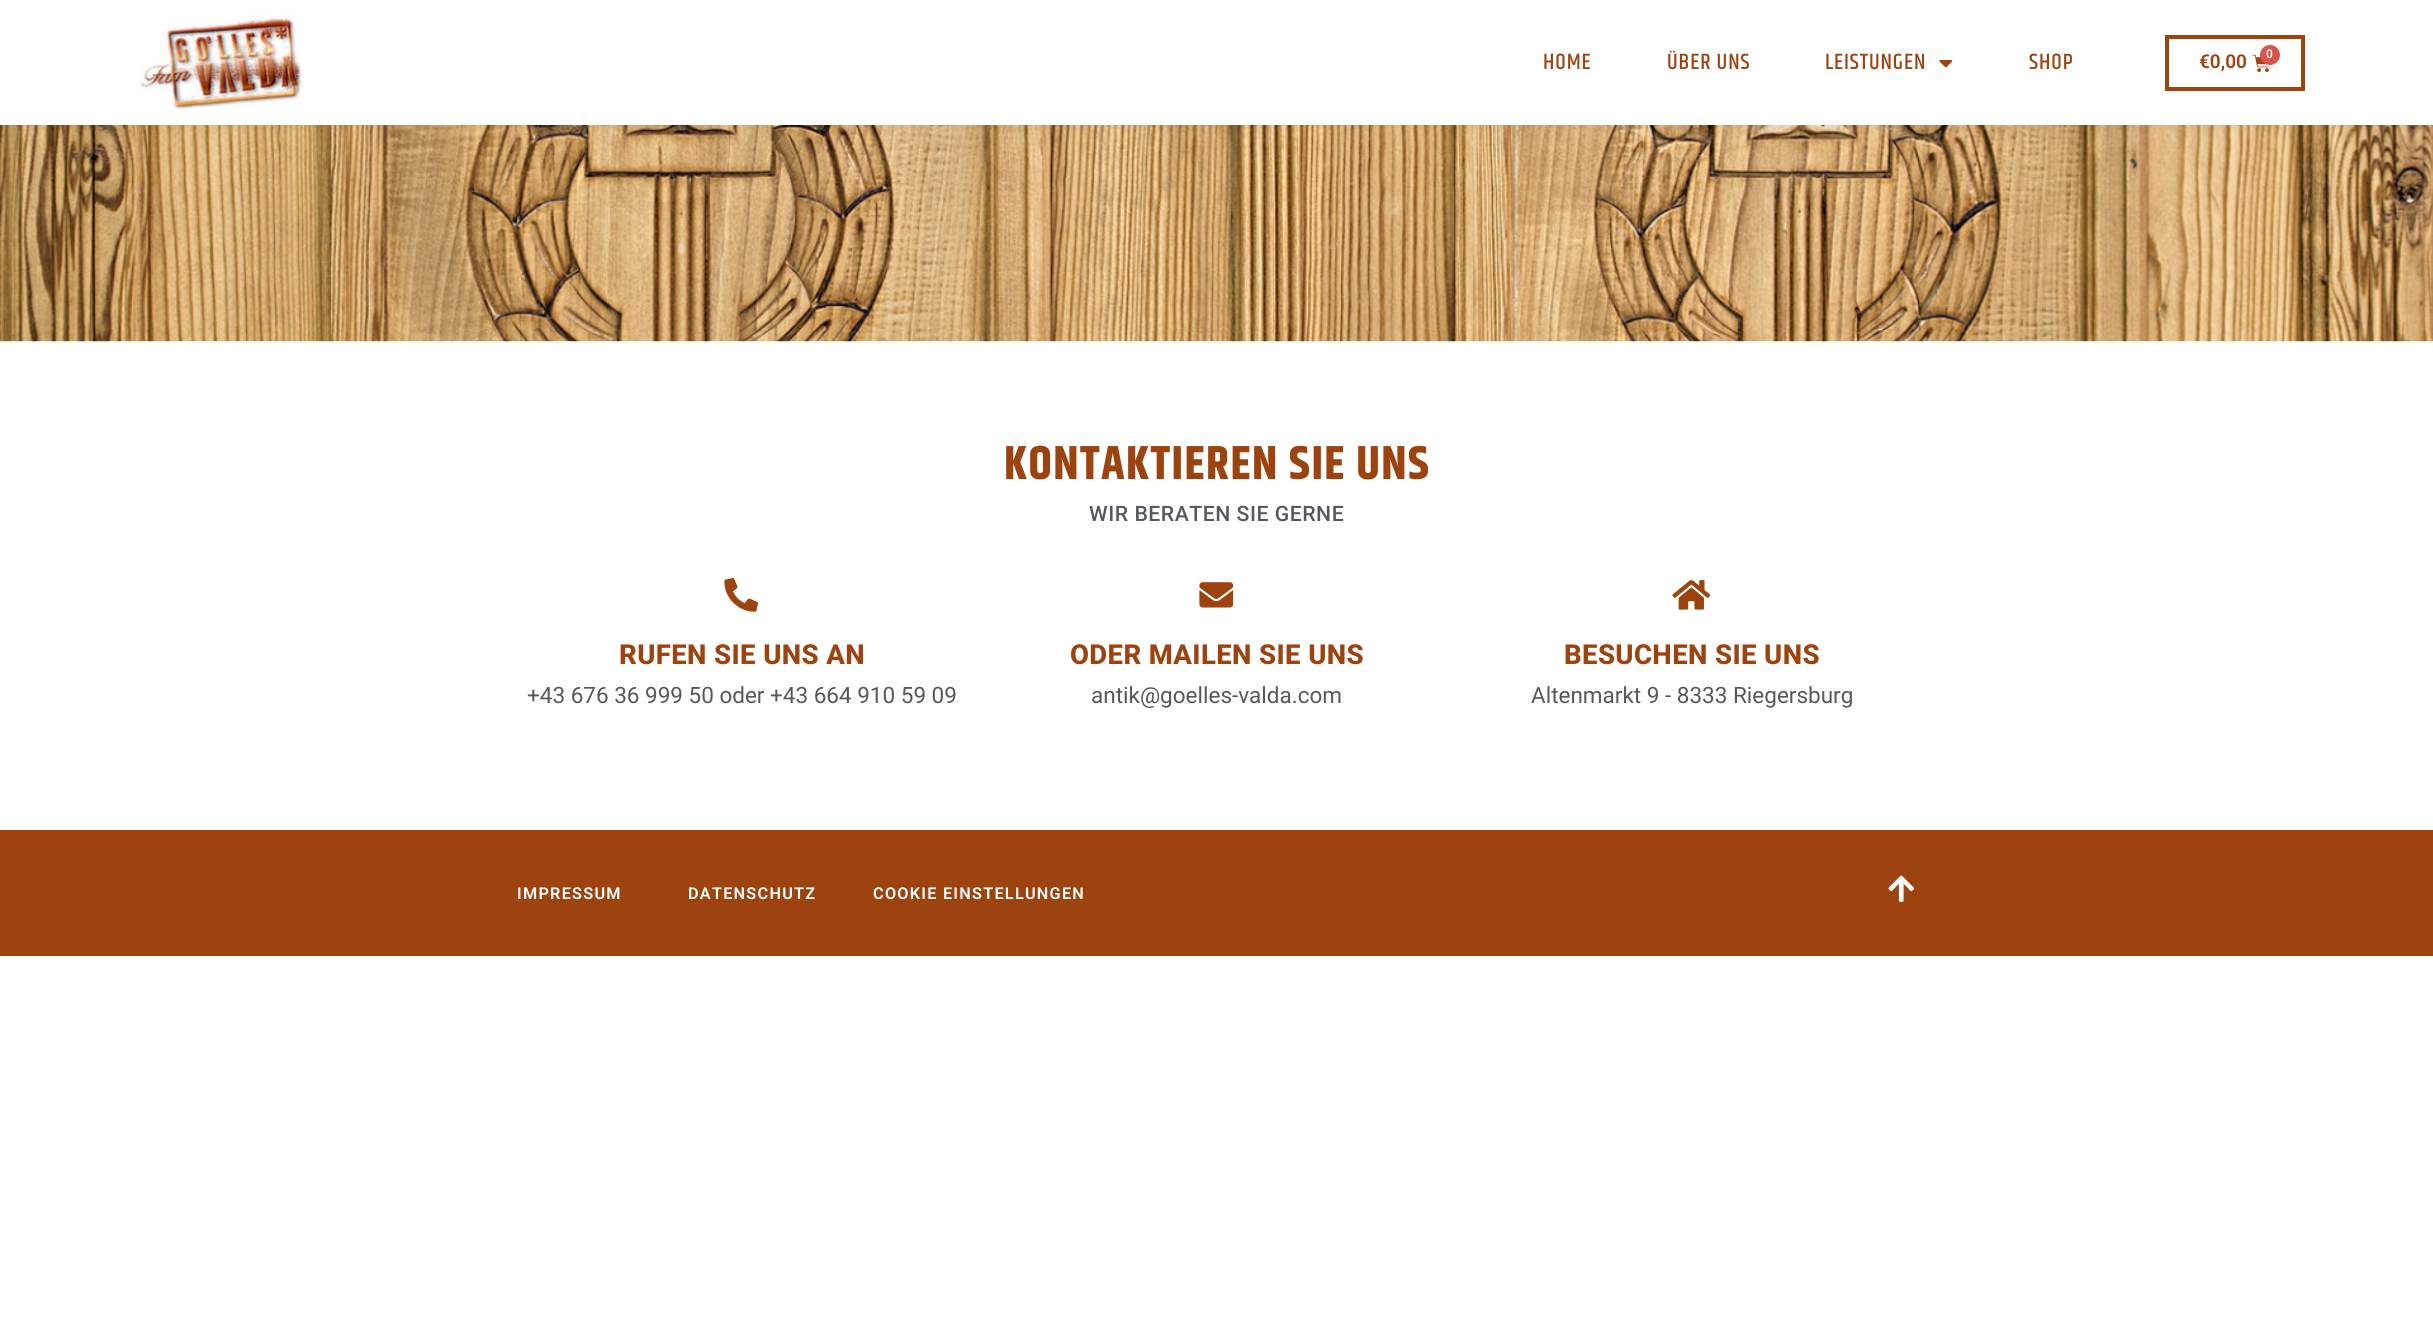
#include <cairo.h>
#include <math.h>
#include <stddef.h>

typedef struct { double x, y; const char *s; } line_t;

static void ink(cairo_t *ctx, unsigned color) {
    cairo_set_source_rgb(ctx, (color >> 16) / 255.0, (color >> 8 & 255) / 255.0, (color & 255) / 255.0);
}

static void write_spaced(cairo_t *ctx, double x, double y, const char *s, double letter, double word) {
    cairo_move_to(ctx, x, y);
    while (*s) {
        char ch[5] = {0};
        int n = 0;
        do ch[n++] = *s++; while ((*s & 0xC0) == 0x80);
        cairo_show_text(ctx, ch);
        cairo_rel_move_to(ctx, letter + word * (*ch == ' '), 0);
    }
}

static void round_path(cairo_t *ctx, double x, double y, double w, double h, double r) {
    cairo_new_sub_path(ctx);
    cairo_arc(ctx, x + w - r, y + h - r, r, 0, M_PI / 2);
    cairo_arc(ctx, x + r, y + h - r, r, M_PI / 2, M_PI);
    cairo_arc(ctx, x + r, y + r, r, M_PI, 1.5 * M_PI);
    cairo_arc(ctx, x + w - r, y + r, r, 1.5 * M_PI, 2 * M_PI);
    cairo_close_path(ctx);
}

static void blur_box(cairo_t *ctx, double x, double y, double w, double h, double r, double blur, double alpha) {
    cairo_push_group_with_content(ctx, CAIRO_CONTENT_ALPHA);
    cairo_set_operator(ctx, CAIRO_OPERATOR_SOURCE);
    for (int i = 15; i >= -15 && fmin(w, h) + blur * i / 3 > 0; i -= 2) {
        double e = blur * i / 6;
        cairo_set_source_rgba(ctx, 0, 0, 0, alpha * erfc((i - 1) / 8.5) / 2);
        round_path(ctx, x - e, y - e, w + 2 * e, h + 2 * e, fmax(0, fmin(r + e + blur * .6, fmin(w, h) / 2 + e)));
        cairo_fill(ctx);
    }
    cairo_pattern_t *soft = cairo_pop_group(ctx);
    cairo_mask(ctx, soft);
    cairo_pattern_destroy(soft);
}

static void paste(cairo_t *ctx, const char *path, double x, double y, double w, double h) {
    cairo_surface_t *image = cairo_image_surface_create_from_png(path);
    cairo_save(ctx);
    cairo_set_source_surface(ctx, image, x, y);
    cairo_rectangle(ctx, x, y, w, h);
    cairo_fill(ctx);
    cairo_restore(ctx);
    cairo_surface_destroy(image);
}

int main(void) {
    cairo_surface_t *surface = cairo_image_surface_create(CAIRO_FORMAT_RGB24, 2433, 1328);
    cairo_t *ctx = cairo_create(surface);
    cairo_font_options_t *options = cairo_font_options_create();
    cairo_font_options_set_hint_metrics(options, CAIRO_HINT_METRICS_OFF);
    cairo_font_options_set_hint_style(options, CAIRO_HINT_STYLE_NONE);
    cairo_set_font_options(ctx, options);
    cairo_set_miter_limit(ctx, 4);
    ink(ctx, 0xFFFFFF);
    cairo_paint(ctx);
    paste(ctx, "media/4.png", 0, 125, 2433, 217);
    ink(ctx, 0x000000);
    blur_box(ctx, 0, 0, 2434, 125, 0, 6, 0.08);
    ink(ctx, 0xFFFFFF);
    cairo_rectangle(ctx, 0, 0, 2433, 125);
    cairo_fill(ctx);
    paste(ctx, "media/1.png", 138, 15, 165, 95);
    cairo_select_font_face(ctx, "Khand Medium", CAIRO_FONT_SLANT_NORMAL, CAIRO_FONT_WEIGHT_NORMAL);
    cairo_set_font_size(ctx, 22.5);
    ink(ctx, 0x9D430F);
    {
        static const line_t items[] = {
            {1543, 69, "HOME"},
            {1667, 69, "ÜBER UNS"},
            {1825, 69, "LEISTUNGEN"},
        };
        for (size_t i = 0; i < sizeof items / sizeof *items; i++) {
            write_spaced(ctx, items[i].x, items[i].y, items[i].s, 0.9, 0);
        }
    }
    paste(ctx, "media/2.png", 1939, 60, 14, 8);
    write_spaced(ctx, 2029, 69, "SHOP", 0.9, 0);
    cairo_rectangle(ctx, 2167, 37, 136, 52);
    cairo_set_line_width(ctx, 4);
    cairo_stroke(ctx);
    cairo_select_font_face(ctx, "Roboto SemiBold", CAIRO_FONT_SLANT_NORMAL, CAIRO_FONT_WEIGHT_NORMAL);
    cairo_set_font_size(ctx, 19);
    cairo_move_to(ctx, 2199, 68);
    cairo_show_text(ctx, "€0,00");
    paste(ctx, "media/3.png", 2252, 54, 17, 18);
    ink(ctx, 0xD9534F);
    cairo_arc(ctx, 2270, 55, 10, 0, 2 * M_PI);
    cairo_fill(ctx);
    cairo_set_font_size(ctx, 12);
    ink(ctx, 0xFFFFFF);
    cairo_move_to(ctx, 2266, 58);
    cairo_show_text(ctx, "0");
    cairo_select_font_face(ctx, "Khand", CAIRO_FONT_SLANT_NORMAL, CAIRO_FONT_WEIGHT_BOLD);
    cairo_set_font_size(ctx, 47.5);
    ink(ctx, 0x9D430F);
    write_spaced(ctx, 1004, 479, "KONTAKTIEREN SIE UNS", 1.5, 0);
    cairo_select_font_face(ctx, "Roboto Medium", CAIRO_FONT_SLANT_NORMAL, CAIRO_FONT_WEIGHT_NORMAL);
    cairo_set_font_size(ctx, 21.25);
    ink(ctx, 0x54595F);
    write_spaced(ctx, 1089, 521, "WIR BERATEN SIE GERNE", 0.5, 0);
    paste(ctx, "media/5.png", 724, 578, 35, 34);
    cairo_select_font_face(ctx, "Roboto ExtraBold", CAIRO_FONT_SLANT_NORMAL, CAIRO_FONT_WEIGHT_NORMAL);
    cairo_set_font_size(ctx, 27.5);
    ink(ctx, 0x9D430F);
    write_spaced(ctx, 619, 664, "RUFEN SIE UNS AN", 0.4, 0);
    cairo_select_font_face(ctx, "Roboto", CAIRO_FONT_SLANT_NORMAL, CAIRO_FONT_WEIGHT_NORMAL);
    cairo_set_font_size(ctx, 22.5);
    ink(ctx, 0x54595F);
    cairo_move_to(ctx, 527, 703);
    cairo_show_text(ctx, "+43 676 36 999 50 oder +43 664 910 59 09");
    paste(ctx, "media/6.png", 1199, 582, 35, 26);
    cairo_select_font_face(ctx, "Roboto ExtraBold", CAIRO_FONT_SLANT_NORMAL, CAIRO_FONT_WEIGHT_NORMAL);
    cairo_set_font_size(ctx, 27.5);
    ink(ctx, 0x9D430F);
    write_spaced(ctx, 1070, 664, "ODER MAILEN SIE UNS", 0.4, 0);
    cairo_select_font_face(ctx, "Roboto", CAIRO_FONT_SLANT_NORMAL, CAIRO_FONT_WEIGHT_NORMAL);
    cairo_set_font_size(ctx, 22.5);
    ink(ctx, 0x54595F);
    cairo_move_to(ctx, 1091, 703);
    cairo_show_text(ctx, "antik@goelles-valda.com");
    paste(ctx, "media/7.png", 1672, 580, 39, 30);
    cairo_select_font_face(ctx, "Roboto ExtraBold", CAIRO_FONT_SLANT_NORMAL, CAIRO_FONT_WEIGHT_NORMAL);
    cairo_set_font_size(ctx, 27.5);
    ink(ctx, 0x9D430F);
    write_spaced(ctx, 1564, 664, "BESUCHEN SIE UNS", 0.4, 0);
    cairo_select_font_face(ctx, "Roboto", CAIRO_FONT_SLANT_NORMAL, CAIRO_FONT_WEIGHT_NORMAL);
    cairo_set_font_size(ctx, 22.5);
    ink(ctx, 0x54595F);
    cairo_move_to(ctx, 1531, 703);
    cairo_show_text(ctx, "Altenmarkt 9 - 8333 Riegersburg");
    ink(ctx, 0x9D430F);
    cairo_rectangle(ctx, 0, 830, 2433, 126);
    cairo_fill(ctx);
    cairo_select_font_face(ctx, "Roboto SemiBold", CAIRO_FONT_SLANT_NORMAL, CAIRO_FONT_WEIGHT_NORMAL);
    cairo_set_font_size(ctx, 16.25);
    ink(ctx, 0xFFFFFF);
    {
        static const line_t items[] = {
            {517, 899, "IMPRESSUM"},
            {688, 899, "DATENSCHUTZ"},
            {873, 899, "COOKIE EINSTELLUNGEN"},
        };
        for (size_t i = 0; i < sizeof items / sizeof *items; i++) {
            write_spaced(ctx, items[i].x, items[i].y, items[i].s, 1.25, 0);
        }
    }
    paste(ctx, "media/8.png", 1888, 875, 26, 27);
    cairo_surface_write_to_png(surface, "image.png");
    cairo_font_options_destroy(options);
    cairo_destroy(ctx);
    cairo_surface_destroy(surface);
    return 0;
}
